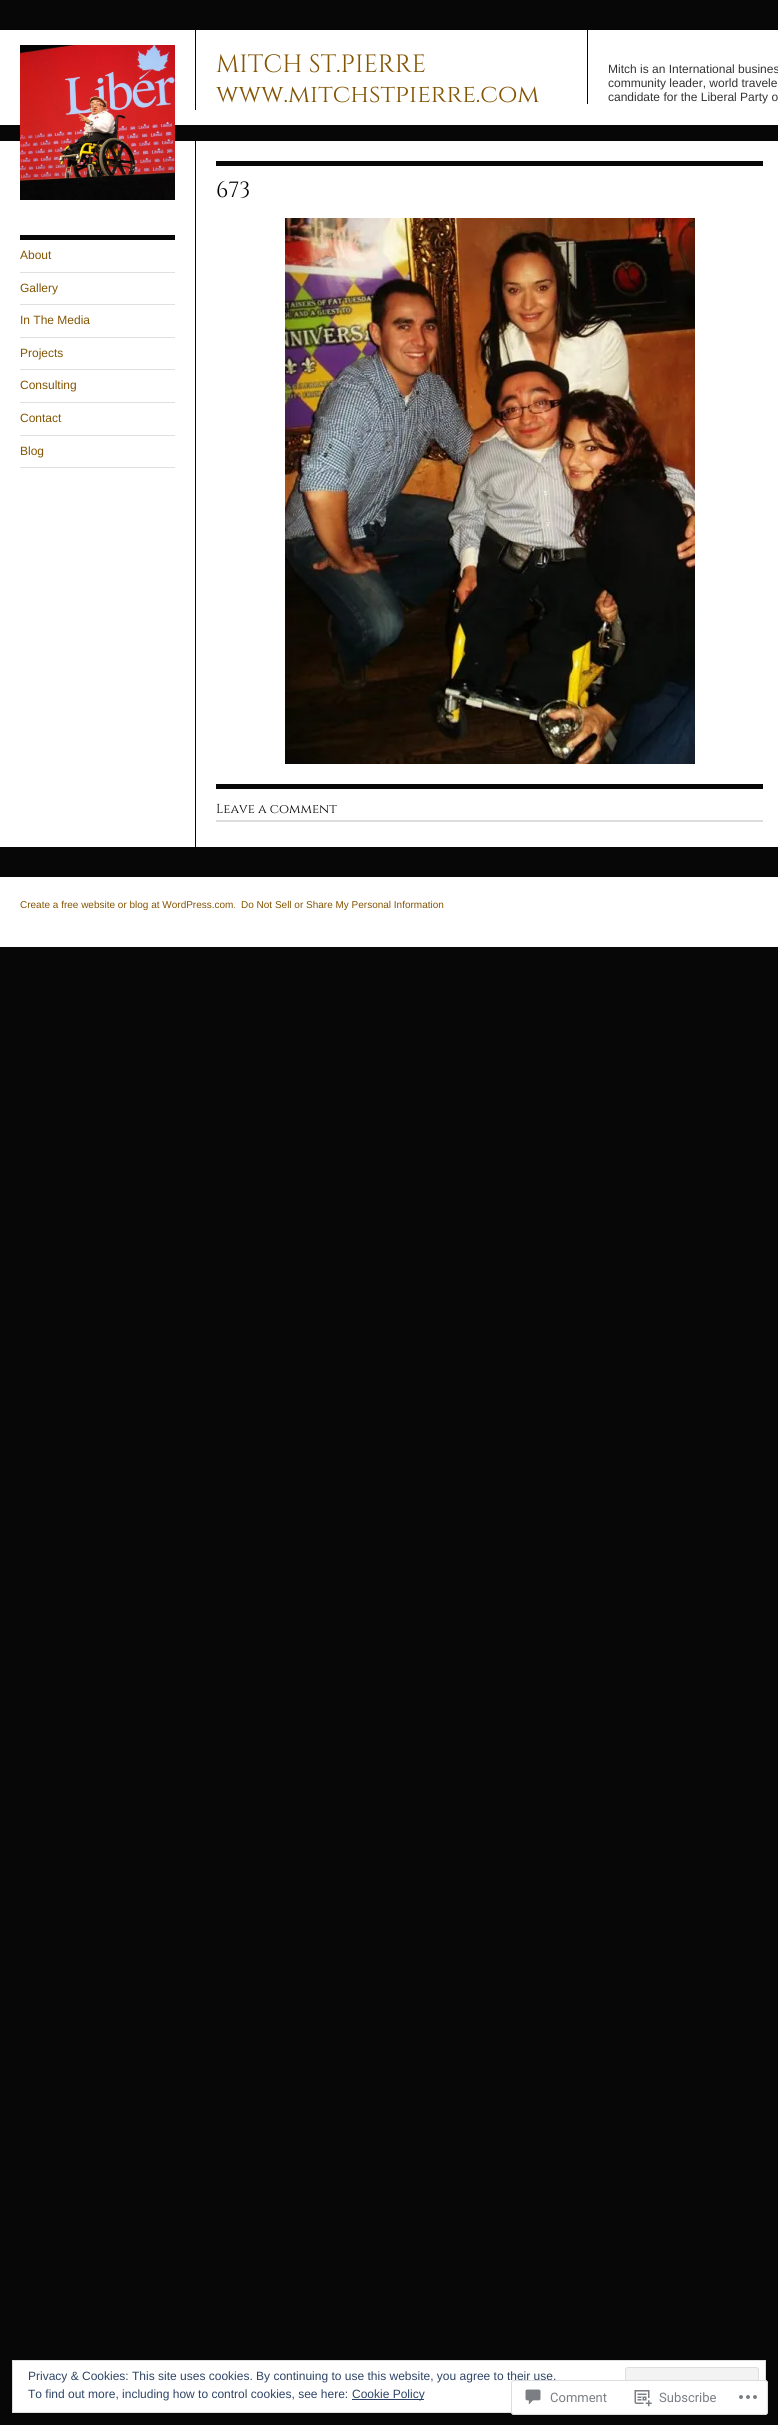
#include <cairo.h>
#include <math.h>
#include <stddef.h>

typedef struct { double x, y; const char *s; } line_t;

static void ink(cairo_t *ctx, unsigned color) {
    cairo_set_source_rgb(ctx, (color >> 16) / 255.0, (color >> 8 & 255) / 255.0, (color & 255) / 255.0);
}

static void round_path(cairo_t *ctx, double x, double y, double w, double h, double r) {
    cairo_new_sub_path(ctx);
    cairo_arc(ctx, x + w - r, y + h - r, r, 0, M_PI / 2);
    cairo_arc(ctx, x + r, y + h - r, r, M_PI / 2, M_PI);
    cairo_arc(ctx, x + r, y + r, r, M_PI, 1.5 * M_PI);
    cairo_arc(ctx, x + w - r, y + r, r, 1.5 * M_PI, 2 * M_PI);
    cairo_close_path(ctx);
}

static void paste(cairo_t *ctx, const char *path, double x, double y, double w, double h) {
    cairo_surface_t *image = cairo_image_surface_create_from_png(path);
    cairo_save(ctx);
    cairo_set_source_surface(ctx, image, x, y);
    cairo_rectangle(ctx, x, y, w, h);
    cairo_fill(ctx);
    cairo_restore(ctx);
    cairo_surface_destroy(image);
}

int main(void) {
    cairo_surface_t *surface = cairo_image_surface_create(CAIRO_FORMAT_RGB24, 778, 2425);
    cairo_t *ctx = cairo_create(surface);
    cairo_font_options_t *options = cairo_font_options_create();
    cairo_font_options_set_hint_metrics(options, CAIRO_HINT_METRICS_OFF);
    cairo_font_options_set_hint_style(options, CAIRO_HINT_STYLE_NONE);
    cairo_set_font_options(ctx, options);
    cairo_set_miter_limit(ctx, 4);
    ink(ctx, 0x070707);
    cairo_paint(ctx);
    ink(ctx, 0xFFFFFF);
    cairo_rectangle(ctx, 0, 30, 778, 95);
    cairo_fill(ctx);
    cairo_rectangle(ctx, 0, 141, 778, 706);
    cairo_fill(ctx);
    paste(ctx, "media/1.png", 20, 45, 155, 155);
    ink(ctx, 0x070707);
    cairo_rectangle(ctx, 195, 30, 1, 80);
    cairo_fill(ctx);
    cairo_select_font_face(ctx, "Cinzel", CAIRO_FONT_SLANT_NORMAL, CAIRO_FONT_WEIGHT_NORMAL);
    cairo_set_font_size(ctx, 25);
    ink(ctx, 0x835504);
    cairo_move_to(ctx, 216, 72);
    cairo_show_text(ctx, "MITCH ST.PIERRE");
    cairo_move_to(ctx, 216, 102);
    cairo_show_text(ctx, "www.mitchstpierre.com");
    ink(ctx, 0x070707);
    cairo_rectangle(ctx, 587, 30, 1, 74);
    cairo_fill(ctx);
    cairo_select_font_face(ctx, "Liberation Sans", CAIRO_FONT_SLANT_NORMAL, CAIRO_FONT_WEIGHT_NORMAL);
    cairo_set_font_size(ctx, 12);
    ink(ctx, 0x333333);
    {
        static const line_t items[] = {
            {608, 73, "Mitch is an International busines"},
            {608, 87, "community leader, world travele"},
            {608, 101, "candidate for the Liberal Party o"},
        };
        for (size_t i = 0; i < sizeof items / sizeof *items; i++) {
            cairo_move_to(ctx, items[i].x, items[i].y);
            cairo_show_text(ctx, items[i].s);
        }
    }
    ink(ctx, 0x070707);
    cairo_rectangle(ctx, 20, 235, 155, 5);
    cairo_fill(ctx);
    ink(ctx, 0xE0E0E0);
    cairo_rectangle(ctx, 20, 272, 155, 1);
    cairo_fill(ctx);
    ink(ctx, 0x835504);
    cairo_move_to(ctx, 20, 259);
    cairo_show_text(ctx, "About");
    ink(ctx, 0xE0E0E0);
    cairo_rectangle(ctx, 20, 304, 155, 1);
    cairo_fill(ctx);
    ink(ctx, 0x835504);
    cairo_move_to(ctx, 20, 292);
    cairo_show_text(ctx, "Gallery");
    ink(ctx, 0xE0E0E0);
    cairo_rectangle(ctx, 20, 337, 155, 1);
    cairo_fill(ctx);
    ink(ctx, 0x835504);
    cairo_move_to(ctx, 20, 324);
    cairo_show_text(ctx, "In The Media");
    ink(ctx, 0xE0E0E0);
    cairo_rectangle(ctx, 20, 369, 155, 1);
    cairo_fill(ctx);
    ink(ctx, 0x835504);
    cairo_move_to(ctx, 20, 357);
    cairo_show_text(ctx, "Projects");
    ink(ctx, 0xE0E0E0);
    cairo_rectangle(ctx, 20, 402, 155, 1);
    cairo_fill(ctx);
    ink(ctx, 0x835504);
    cairo_move_to(ctx, 20, 389);
    cairo_show_text(ctx, "Consulting");
    ink(ctx, 0xE0E0E0);
    cairo_rectangle(ctx, 20, 435, 155, 1);
    cairo_fill(ctx);
    ink(ctx, 0x835504);
    cairo_move_to(ctx, 20, 422);
    cairo_show_text(ctx, "Contact");
    ink(ctx, 0xE0E0E0);
    cairo_rectangle(ctx, 20, 467, 155, 1);
    cairo_fill(ctx);
    ink(ctx, 0x835504);
    cairo_move_to(ctx, 20, 455);
    cairo_show_text(ctx, "Blog");
    ink(ctx, 0x070707);
    cairo_rectangle(ctx, 195, 140, 1, 707);
    cairo_fill(ctx);
    cairo_rectangle(ctx, 216, 161, 547, 5);
    cairo_fill(ctx);
    cairo_select_font_face(ctx, "Cinzel", CAIRO_FONT_SLANT_NORMAL, CAIRO_FONT_WEIGHT_NORMAL);
    cairo_set_font_size(ctx, 22);
    ink(ctx, 0x000000);
    cairo_move_to(ctx, 216, 197);
    cairo_show_text(ctx, "673");
    paste(ctx, "media/2.png", 285, 218, 410, 546);
    ink(ctx, 0x070707);
    cairo_rectangle(ctx, 216, 784, 547, 5);
    cairo_fill(ctx);
    cairo_set_font_size(ctx, 13);
    ink(ctx, 0x000000);
    cairo_move_to(ctx, 216, 813);
    cairo_show_text(ctx, "Leave a comment");
    ink(ctx, 0xDCDCDE);
    cairo_rectangle(ctx, 216, 820, 547, 2);
    cairo_fill(ctx);
    ink(ctx, 0xFFFFFF);
    cairo_rectangle(ctx, 0, 877, 778, 70);
    cairo_fill(ctx);
    cairo_select_font_face(ctx, "Liberation Sans", CAIRO_FONT_SLANT_NORMAL, CAIRO_FONT_WEIGHT_NORMAL);
    cairo_set_font_size(ctx, 10);
    ink(ctx, 0x835504);
    cairo_move_to(ctx, 20, 908);
    cairo_show_text(ctx, "Create a free website or blog at WordPress.com.");
    cairo_move_to(ctx, 241, 908);
    cairo_show_text(ctx, "Do Not Sell or Share My Personal Information");
    ink(ctx, 0xFFFFFF);
    cairo_rectangle(ctx, 12.5, 2360.5, 753, 52);
    cairo_fill_preserve(ctx);
    ink(ctx, 0xDEDEDE);
    cairo_set_line_width(ctx, 1);
    cairo_stroke(ctx);
    cairo_set_font_size(ctx, 12);
    ink(ctx, 0x2E4467);
    cairo_move_to(ctx, 28, 2380);
    cairo_show_text(ctx, "Privacy & Cookies: This site uses cookies. By continuing to use this website, you agree to their use.");
    ink(ctx, 0xF3F3F3);
    round_path(ctx, 625.5, 2367.5, 133, 38, 2.5);
    cairo_fill_preserve(ctx);
    ink(ctx, 0xDEDEDE);
    cairo_stroke(ctx);
    ink(ctx, 0x2E4467);
    cairo_move_to(ctx, 28, 2398);
    cairo_show_text(ctx, "To find out more, including how to control cookies, see here:");
    cairo_rectangle(ctx, 352, 2399, 72, 1);
    cairo_fill(ctx);
    cairo_move_to(ctx, 352, 2398);
    cairo_show_text(ctx, "Cookie Policy");
    cairo_set_source_rgba(ctx, 1, 1, 1, 0.98);
    round_path(ctx, 511, 2380, 257, 35, 3);
    cairo_fill(ctx);
    round_path(ctx, 511.5, 2380.5, 256, 34, 2.5);
    cairo_set_source_rgba(ctx, 0.863, 0.863, 0.871, 0.98);
    cairo_stroke(ctx);
    paste(ctx, "media/3.png", 525, 2389, 16, 16);
    cairo_select_font_face(ctx, "Roboto", CAIRO_FONT_SLANT_NORMAL, CAIRO_FONT_WEIGHT_NORMAL);
    cairo_set_font_size(ctx, 13);
    ink(ctx, 0x7B7F85);
    cairo_move_to(ctx, 550, 2402);
    cairo_show_text(ctx, "Comment");
    paste(ctx, "media/4.png", 634, 2390, 18, 17);
    cairo_move_to(ctx, 659, 2402);
    cairo_show_text(ctx, "Subscribe");
    paste(ctx, "media/5.png", 739, 2395, 18, 4);
    cairo_surface_write_to_png(surface, "image.png");
    cairo_font_options_destroy(options);
    cairo_destroy(ctx);
    cairo_surface_destroy(surface);
    return 0;
}
